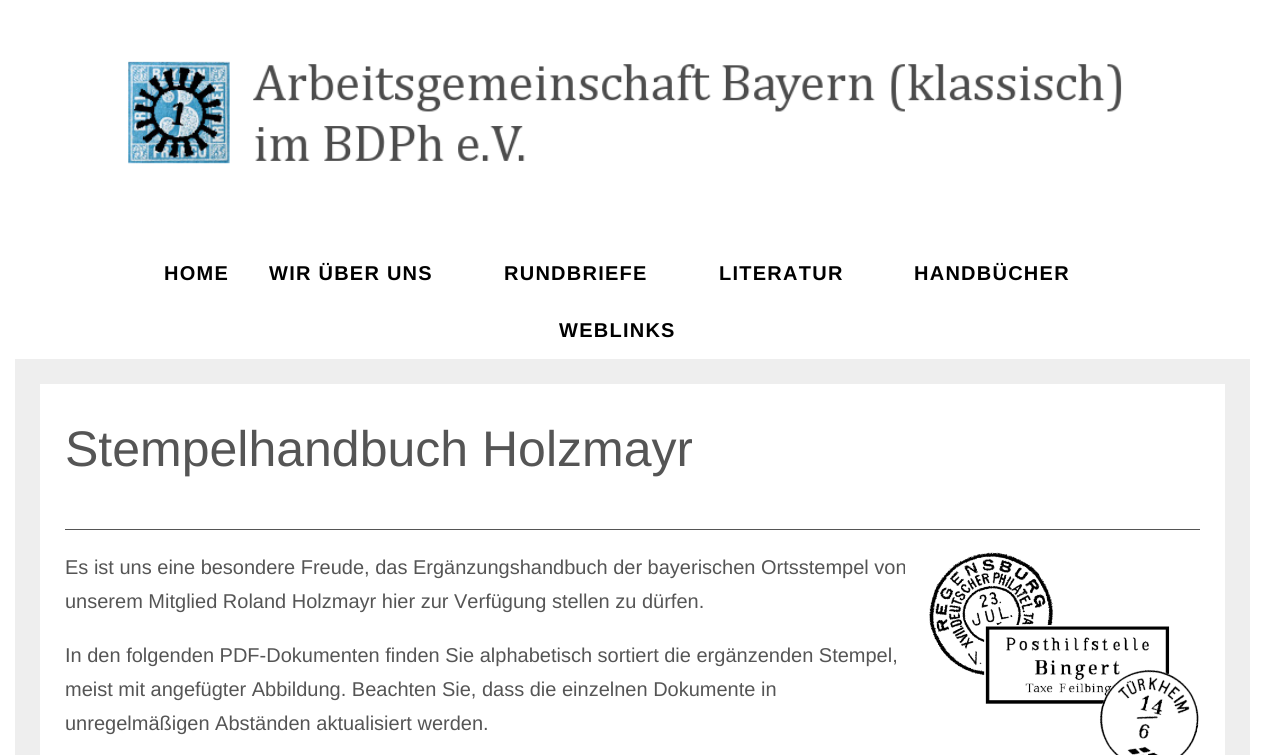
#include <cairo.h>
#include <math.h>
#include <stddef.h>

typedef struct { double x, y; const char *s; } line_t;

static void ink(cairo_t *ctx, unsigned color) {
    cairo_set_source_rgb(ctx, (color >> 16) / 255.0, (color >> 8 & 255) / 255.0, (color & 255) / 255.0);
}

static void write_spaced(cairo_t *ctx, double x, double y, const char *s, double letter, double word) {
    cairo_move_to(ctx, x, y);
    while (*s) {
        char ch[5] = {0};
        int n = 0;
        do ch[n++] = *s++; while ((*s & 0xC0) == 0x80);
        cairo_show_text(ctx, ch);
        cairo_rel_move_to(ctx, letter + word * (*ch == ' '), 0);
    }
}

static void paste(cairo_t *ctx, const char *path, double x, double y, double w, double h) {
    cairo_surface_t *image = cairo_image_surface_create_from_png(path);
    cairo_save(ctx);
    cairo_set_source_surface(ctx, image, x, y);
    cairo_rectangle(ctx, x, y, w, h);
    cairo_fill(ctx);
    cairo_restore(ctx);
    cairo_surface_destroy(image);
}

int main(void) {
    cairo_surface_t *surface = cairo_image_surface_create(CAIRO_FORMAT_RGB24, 1264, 755);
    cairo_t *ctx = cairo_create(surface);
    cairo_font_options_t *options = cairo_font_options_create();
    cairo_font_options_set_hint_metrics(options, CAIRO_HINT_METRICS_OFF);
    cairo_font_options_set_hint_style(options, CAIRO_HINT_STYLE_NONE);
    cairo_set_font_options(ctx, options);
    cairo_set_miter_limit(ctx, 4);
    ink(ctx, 0xFFFFFF);
    cairo_paint(ctx);
    paste(ctx, "media/1.png", 128, 61, 994, 103);
    cairo_select_font_face(ctx, "Liberation Sans", CAIRO_FONT_SLANT_NORMAL, CAIRO_FONT_WEIGHT_BOLD);
    cairo_set_font_size(ctx, 20);
    ink(ctx, 0x000000);
    {
        static const line_t items[] = {
            {164, 280, "HOME"},
            {269, 280, "WIR ÜBER UNS"},
            {504, 280, "RUNDBRIEFE"},
            {719, 280, "LITERATUR"},
            {914, 280, "HANDBÜCHER"},
            {559, 337, "WEBLINKS"},
        };
        for (size_t i = 0; i < sizeof items / sizeof *items; i++) {
            write_spaced(ctx, items[i].x, items[i].y, items[i].s, 1.25, 0);
        }
    }
    ink(ctx, 0xEEEEEE);
    cairo_rectangle(ctx, 15, 359, 1235, 396);
    cairo_fill(ctx);
    ink(ctx, 0xFFFFFF);
    cairo_rectangle(ctx, 40, 384, 1185, 371);
    cairo_fill(ctx);
    cairo_select_font_face(ctx, "Liberation Sans", CAIRO_FONT_SLANT_NORMAL, CAIRO_FONT_WEIGHT_NORMAL);
    cairo_set_font_size(ctx, 50);
    ink(ctx, 0x555555);
    cairo_move_to(ctx, 65, 466);
    cairo_show_text(ctx, "Stempelhandbuch Holzmayr");
    cairo_rectangle(ctx, 65, 529, 1135, 1);
    cairo_fill(ctx);
    cairo_set_font_size(ctx, 20);
    cairo_move_to(ctx, 65, 574);
    cairo_show_text(ctx, "Es ist uns eine besondere Freude, das Ergänzungshandbuch der bayerischen Ortsstempel von");
    paste(ctx, "media/2.png", 929, 552, 270, 203);
    {
        static const line_t items[] = {
            {65, 608, "unserem Mitglied Roland Holzmayr hier zur Verfügung stellen zu dürfen."},
            {65, 662, "In den folgenden PDF-Dokumenten finden Sie alphabetisch sortiert die ergänzenden Stempel,"},
            {65, 696, "meist mit angefügter Abbildung. Beachten Sie, dass die einzelnen Dokumente in"},
            {65, 730, "unregelmäßigen Abständen aktualisiert werden."},
        };
        for (size_t i = 0; i < sizeof items / sizeof *items; i++) {
            cairo_move_to(ctx, items[i].x, items[i].y);
            cairo_show_text(ctx, items[i].s);
        }
    }
    cairo_surface_write_to_png(surface, "image.png");
    cairo_font_options_destroy(options);
    cairo_destroy(ctx);
    cairo_surface_destroy(surface);
    return 0;
}
